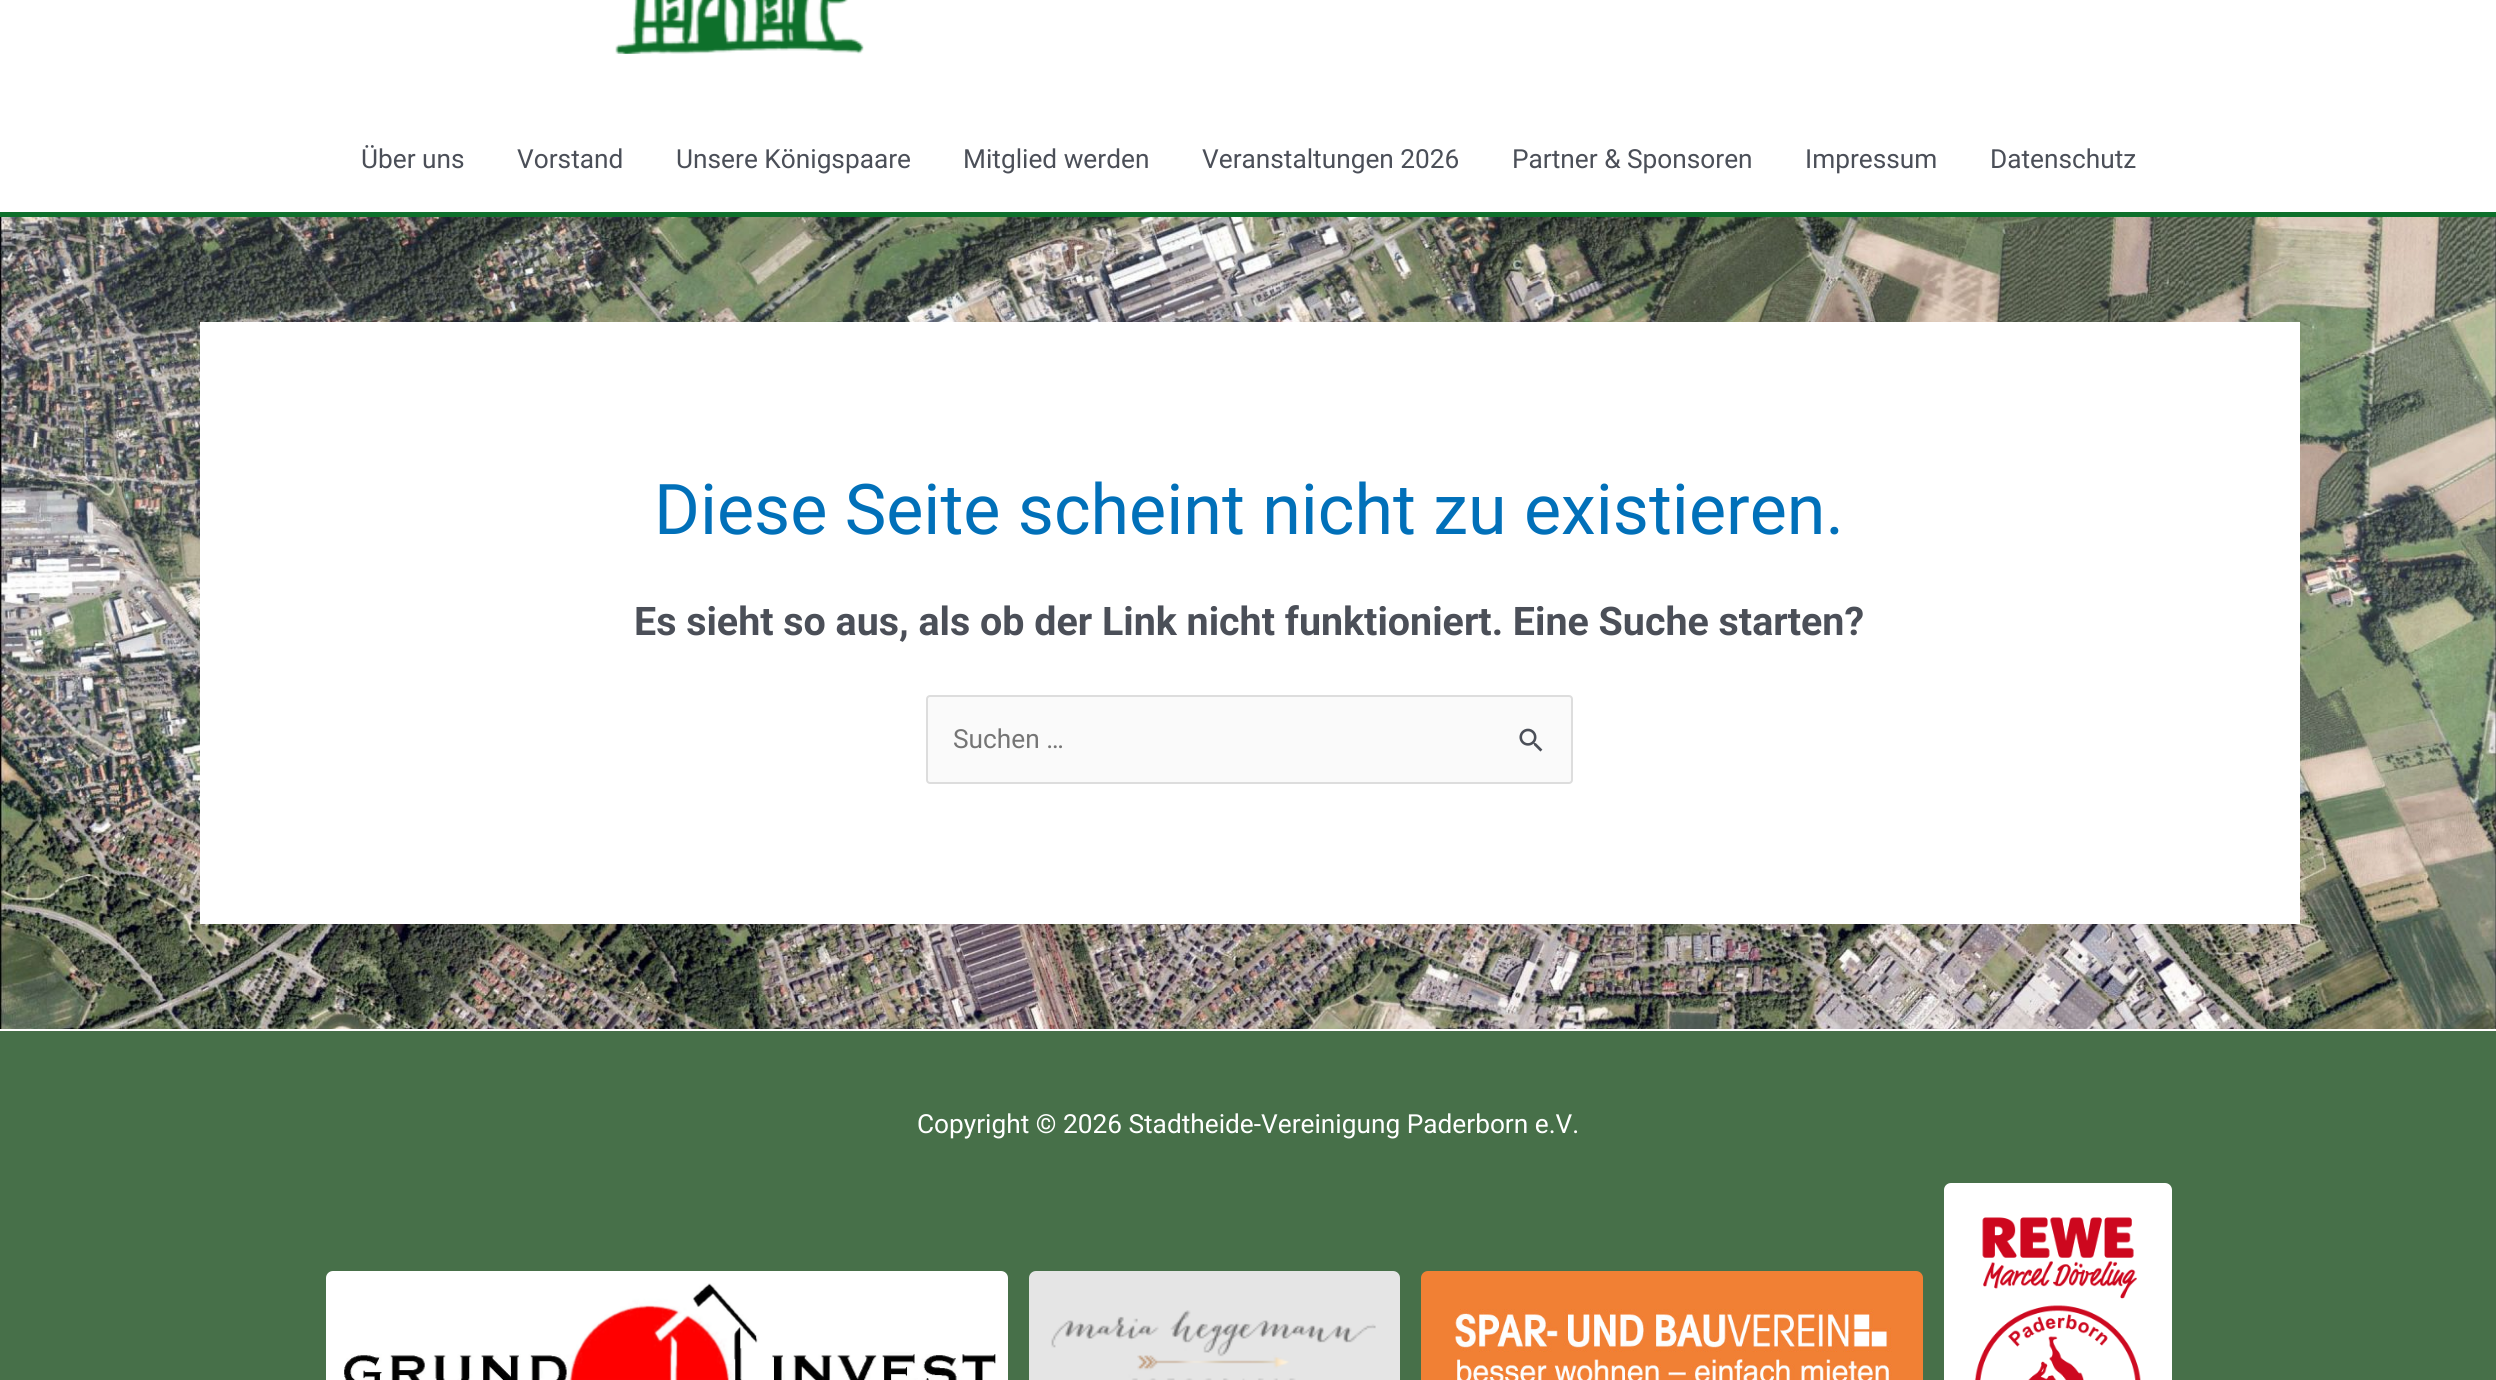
#include <cairo.h>
#include <math.h>
#include <stddef.h>

typedef struct { double x, y; const char *s; } line_t;

static void ink(cairo_t *ctx, unsigned color) {
    cairo_set_source_rgb(ctx, (color >> 16) / 255.0, (color >> 8 & 255) / 255.0, (color & 255) / 255.0);
}

static void round_path(cairo_t *ctx, double x, double y, double w, double h, double r) {
    cairo_new_sub_path(ctx);
    cairo_arc(ctx, x + w - r, y + h - r, r, 0, M_PI / 2);
    cairo_arc(ctx, x + r, y + h - r, r, M_PI / 2, M_PI);
    cairo_arc(ctx, x + r, y + r, r, M_PI, 1.5 * M_PI);
    cairo_arc(ctx, x + w - r, y + r, r, 1.5 * M_PI, 2 * M_PI);
    cairo_close_path(ctx);
}

static void paste(cairo_t *ctx, const char *path, double x, double y, double w, double h) {
    cairo_surface_t *image = cairo_image_surface_create_from_png(path);
    cairo_save(ctx);
    cairo_set_source_surface(ctx, image, x, y);
    cairo_rectangle(ctx, x, y, w, h);
    cairo_fill(ctx);
    cairo_restore(ctx);
    cairo_surface_destroy(image);
}

int main(void) {
    cairo_surface_t *surface = cairo_image_surface_create(CAIRO_FORMAT_RGB24, 2496, 1380);
    cairo_t *ctx = cairo_create(surface);
    cairo_font_options_t *options = cairo_font_options_create();
    cairo_font_options_set_hint_metrics(options, CAIRO_HINT_METRICS_OFF);
    cairo_font_options_set_hint_style(options, CAIRO_HINT_STYLE_NONE);
    cairo_set_font_options(ctx, options);
    cairo_set_miter_limit(ctx, 4);
    ink(ctx, 0xFFFFFF);
    cairo_paint(ctx);
    paste(ctx, "media/1.png", 0, 217, 2496, 812);
    ink(ctx, 0x0E702B);
    cairo_rectangle(ctx, 0, 212, 2496, 5);
    cairo_fill(ctx);
    paste(ctx, "media/2.png", 615, 0, 249, 54);
    cairo_select_font_face(ctx, "Roboto", CAIRO_FONT_SLANT_NORMAL, CAIRO_FONT_WEIGHT_NORMAL);
    cairo_set_font_size(ctx, 26.25);
    ink(ctx, 0x4B4F58);
    {
        static const line_t items[] = {
            {361, 168, "Über uns"},
            {517, 168, "Vorstand"},
            {676, 168, "Unsere Königspaare"},
            {963, 168, "Mitglied werden"},
            {1202, 168, "Veranstaltungen 2026"},
            {1512, 168, "Partner & Sponsoren"},
            {1805, 168, "Impressum"},
            {1990, 168, "Datenschutz"},
        };
        for (size_t i = 0; i < sizeof items / sizeof *items; i++) {
            cairo_move_to(ctx, items[i].x, items[i].y);
            cairo_show_text(ctx, items[i].s);
        }
    }
    ink(ctx, 0xFFFFFF);
    cairo_rectangle(ctx, 200, 322, 2100, 602);
    cairo_fill(ctx);
    cairo_set_font_size(ctx, 70);
    ink(ctx, 0x0170B9);
    cairo_move_to(ctx, 654, 534);
    cairo_show_text(ctx, "Diese Seite scheint nicht zu existieren.");
    cairo_select_font_face(ctx, "Roboto", CAIRO_FONT_SLANT_NORMAL, CAIRO_FONT_WEIGHT_BOLD);
    cairo_set_font_size(ctx, 39.4);
    ink(ctx, 0x4B4F58);
    cairo_move_to(ctx, 634, 635);
    cairo_show_text(ctx, "Es sieht so aus, als ob der Link nicht funktioniert. Eine Suche starten?");
    ink(ctx, 0xFAFAFA);
    round_path(ctx, 927, 696, 645, 87, 3);
    cairo_fill_preserve(ctx);
    ink(ctx, 0xDDDDDD);
    cairo_stroke(ctx);
    cairo_select_font_face(ctx, "Roboto", CAIRO_FONT_SLANT_NORMAL, CAIRO_FONT_WEIGHT_NORMAL);
    cairo_set_font_size(ctx, 26.25);
    ink(ctx, 0x757575);
    cairo_move_to(ctx, 953, 748);
    cairo_show_text(ctx, "Suchen …");
    paste(ctx, "media/3.png", 1519, 728, 24, 24);
    ink(ctx, 0x477049);
    cairo_rectangle(ctx, 0, 1031, 2496, 349);
    cairo_fill(ctx);
    ink(ctx, 0xFFFFFF);
    cairo_move_to(ctx, 917, 1133);
    cairo_show_text(ctx, "Copyright © 2026 Stadtheide-Vereinigung Paderborn e.V.");
    round_path(ctx, 326, 1271, 682, 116, 7);
    cairo_fill(ctx);
    paste(ctx, "media/4.png", 344, 1283, 652, 97);
    ink(ctx, 0xE5E5E5);
    round_path(ctx, 1029, 1271, 371, 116, 7);
    cairo_fill(ctx);
    paste(ctx, "media/5.png", 1051, 1310, 325, 70);
    ink(ctx, 0xF18034);
    round_path(ctx, 1421, 1271, 502, 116, 7);
    cairo_fill(ctx);
    paste(ctx, "media/6.png", 1454, 1309, 438, 71);
    ink(ctx, 0xFFFFFF);
    round_path(ctx, 1944, 1183, 228, 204, 7);
    cairo_fill(ctx);
    paste(ctx, "media/7.png", 1974, 1217, 167, 163);
    cairo_surface_write_to_png(surface, "image.png");
    cairo_font_options_destroy(options);
    cairo_destroy(ctx);
    cairo_surface_destroy(surface);
    return 0;
}
